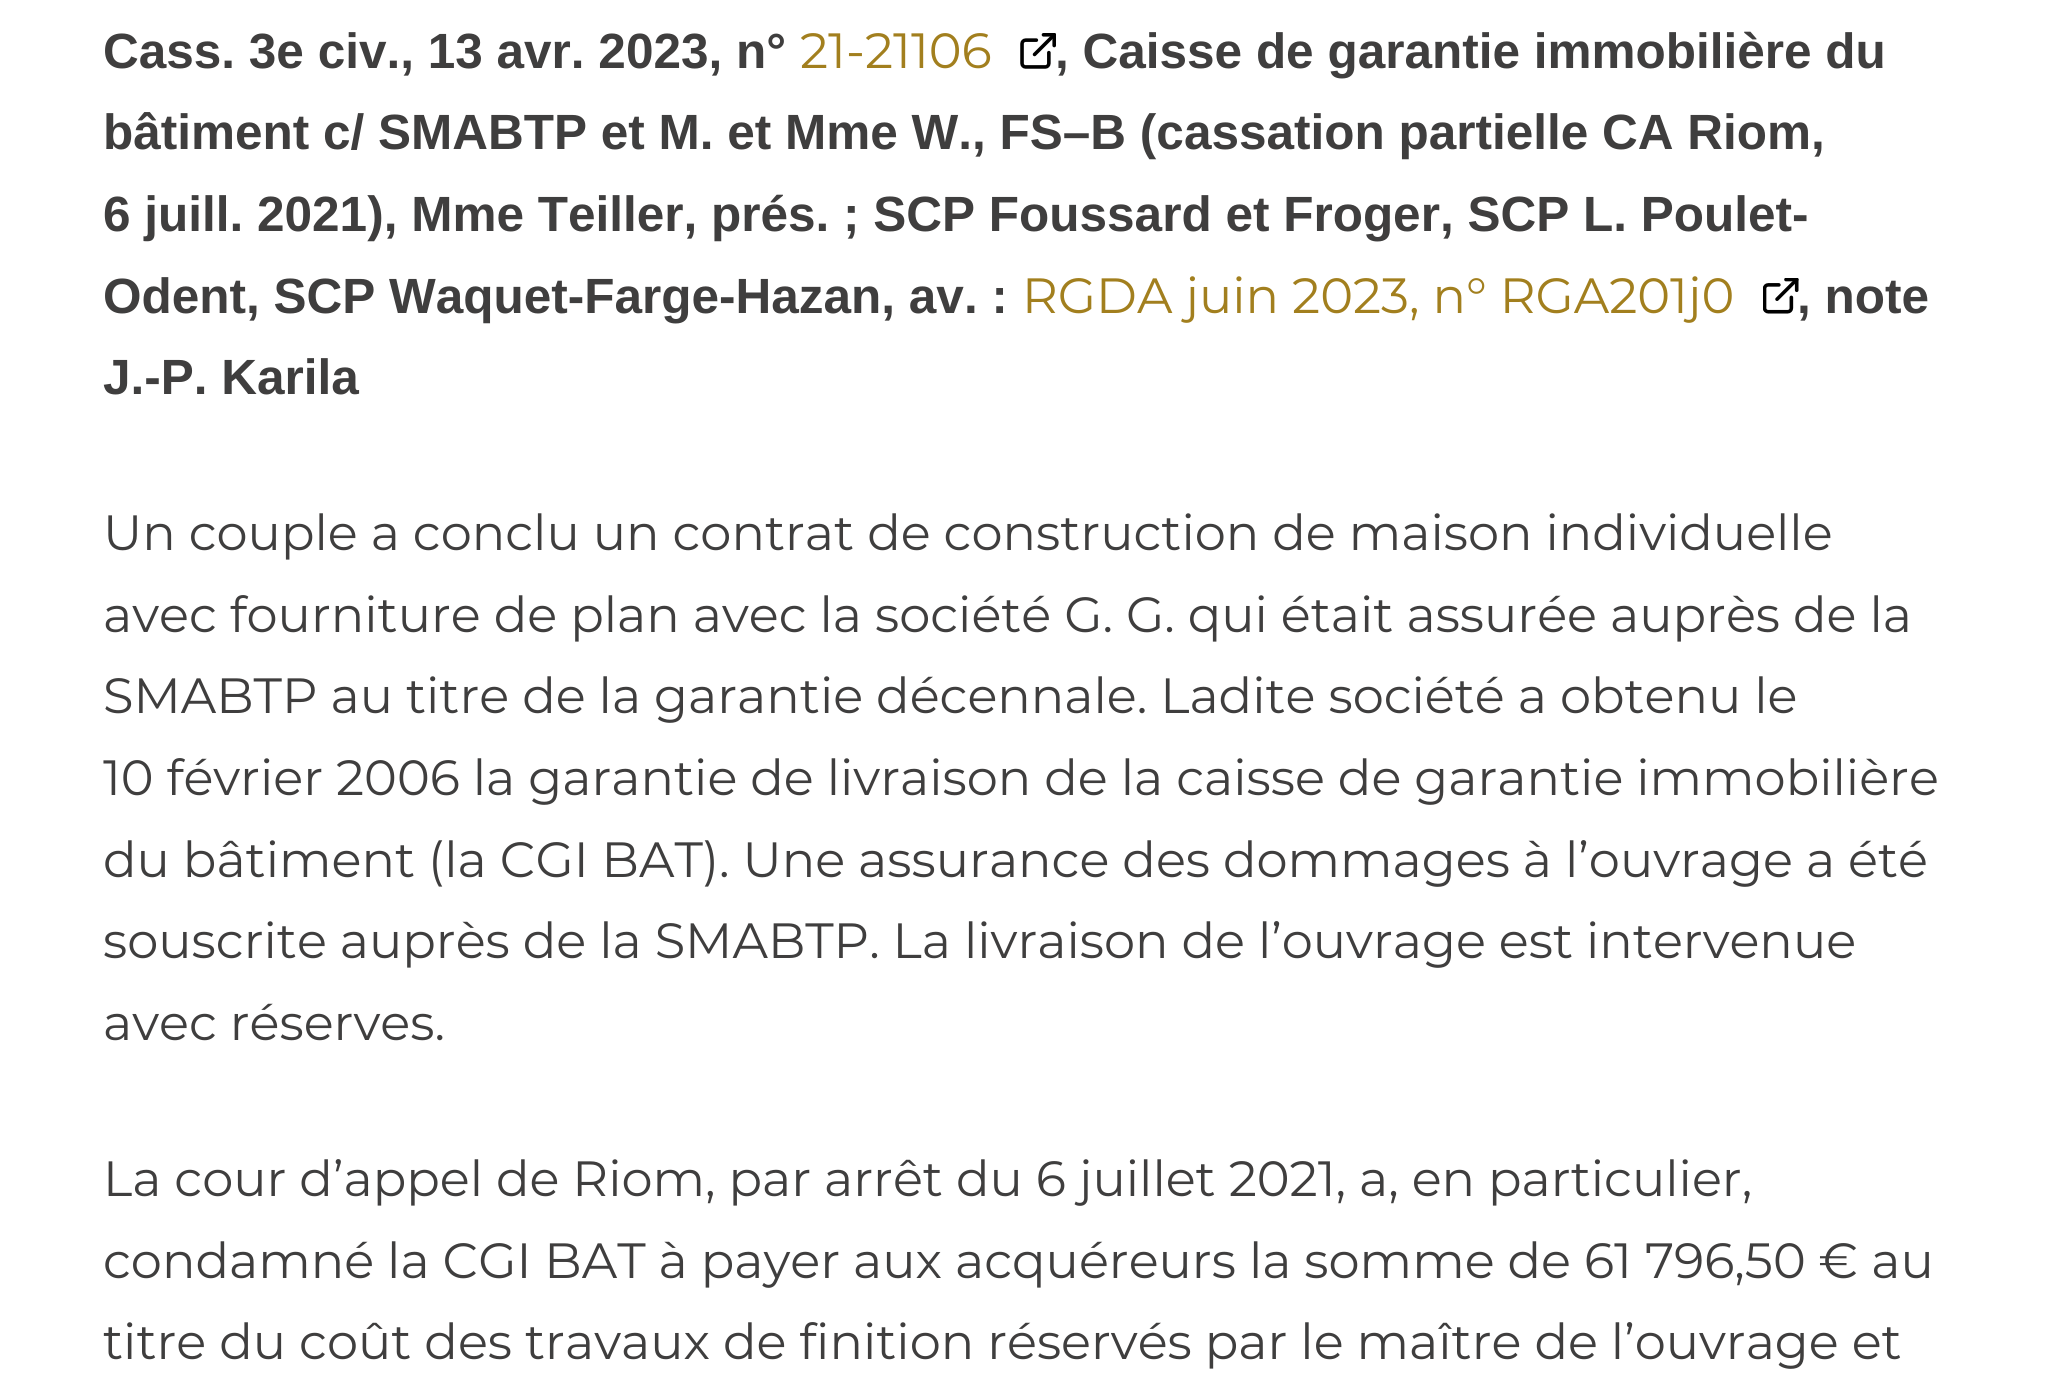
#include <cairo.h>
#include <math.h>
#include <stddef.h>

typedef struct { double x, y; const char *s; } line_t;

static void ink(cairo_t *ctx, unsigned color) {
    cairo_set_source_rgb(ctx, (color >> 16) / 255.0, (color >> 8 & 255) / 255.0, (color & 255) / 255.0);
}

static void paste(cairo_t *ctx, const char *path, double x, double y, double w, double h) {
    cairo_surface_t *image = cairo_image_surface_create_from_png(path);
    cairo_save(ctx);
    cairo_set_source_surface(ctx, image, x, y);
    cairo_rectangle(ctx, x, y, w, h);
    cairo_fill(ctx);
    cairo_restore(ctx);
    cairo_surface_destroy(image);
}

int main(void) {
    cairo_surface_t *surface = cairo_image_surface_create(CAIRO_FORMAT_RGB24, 2058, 1376);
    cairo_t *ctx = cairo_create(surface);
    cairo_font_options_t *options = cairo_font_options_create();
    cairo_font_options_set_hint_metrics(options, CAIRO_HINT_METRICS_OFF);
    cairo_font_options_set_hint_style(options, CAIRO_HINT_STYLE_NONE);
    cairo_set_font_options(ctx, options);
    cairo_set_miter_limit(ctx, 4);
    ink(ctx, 0xFFFFFF);
    cairo_paint(ctx);
    cairo_select_font_face(ctx, "Liberation Sans", CAIRO_FONT_SLANT_NORMAL, CAIRO_FONT_WEIGHT_BOLD);
    cairo_set_font_size(ctx, 49.5);
    ink(ctx, 0x3F3E3E);
    cairo_move_to(ctx, 103, 68);
    cairo_show_text(ctx, "Cass. 3e civ., 13 avr. 2023, n°");
    cairo_select_font_face(ctx, "Montserrat", CAIRO_FONT_SLANT_NORMAL, CAIRO_FONT_WEIGHT_NORMAL);
    ink(ctx, 0xA27F1E);
    cairo_move_to(ctx, 800, 68);
    cairo_show_text(ctx, "21-21106");
    paste(ctx, "media/1.png", 1020, 33, 36, 36);
    cairo_select_font_face(ctx, "Liberation Sans", CAIRO_FONT_SLANT_NORMAL, CAIRO_FONT_WEIGHT_BOLD);
    ink(ctx, 0x3F3E3E);
    {
        static const line_t items[] = {
            {1055, 68, ", Caisse de garantie immobilière du"},
            {103, 149, "bâtiment c/ SMABTP et M. et Mme W., FS–B (cassation partielle CA Riom,"},
            {103, 231, "6 juill. 2021), Mme Teiller, prés. ; SCP Foussard et Froger, SCP L. Poulet-"},
            {103, 313, "Odent, SCP Waquet-Farge-Hazan, av. :"},
        };
        for (size_t i = 0; i < sizeof items / sizeof *items; i++) {
            cairo_move_to(ctx, items[i].x, items[i].y);
            cairo_show_text(ctx, items[i].s);
        }
    }
    cairo_select_font_face(ctx, "Montserrat", CAIRO_FONT_SLANT_NORMAL, CAIRO_FONT_WEIGHT_NORMAL);
    ink(ctx, 0xA27F1E);
    cairo_move_to(ctx, 1022, 313);
    cairo_show_text(ctx, "RGDA juin 2023, n° RGA201j0");
    paste(ctx, "media/2.png", 1763, 278, 36, 36);
    cairo_select_font_face(ctx, "Liberation Sans", CAIRO_FONT_SLANT_NORMAL, CAIRO_FONT_WEIGHT_BOLD);
    ink(ctx, 0x3F3E3E);
    cairo_move_to(ctx, 1797, 313);
    cairo_show_text(ctx, ", note");
    cairo_move_to(ctx, 103, 394);
    cairo_show_text(ctx, "J.-P. Karila");
    cairo_select_font_face(ctx, "Montserrat", CAIRO_FONT_SLANT_NORMAL, CAIRO_FONT_WEIGHT_NORMAL);
    {
        static const line_t items[] = {
            {103, 550, "Un couple a conclu un contrat de construction de maison individuelle"},
            {103, 632, "avec fourniture de plan avec la société G. G. qui était assurée auprès de la"},
            {103, 713, "SMABTP au titre de la garantie décennale. Ladite société a obtenu le"},
            {103, 795, "10 février 2006 la garantie de livraison de la caisse de garantie immobilière"},
            {103, 877, "du bâtiment (la CGI BAT). Une assurance des dommages à l’ouvrage a été"},
            {103, 958, "souscrite auprès de la SMABTP. La livraison de l’ouvrage est intervenue"},
            {103, 1040, "avec réserves."},
            {103, 1196, "La cour d’appel de Riom, par arrêt du 6 juillet 2021, a, en particulier,"},
            {103, 1278, "condamné la CGI BAT à payer aux acquéreurs la somme de 61 796,50 € au"},
            {103, 1359, "titre du coût des travaux de finition réservés par le maître de l’ouvrage et"},
        };
        for (size_t i = 0; i < sizeof items / sizeof *items; i++) {
            cairo_move_to(ctx, items[i].x, items[i].y);
            cairo_show_text(ctx, items[i].s);
        }
    }
    cairo_surface_write_to_png(surface, "image.png");
    cairo_font_options_destroy(options);
    cairo_destroy(ctx);
    cairo_surface_destroy(surface);
    return 0;
}
